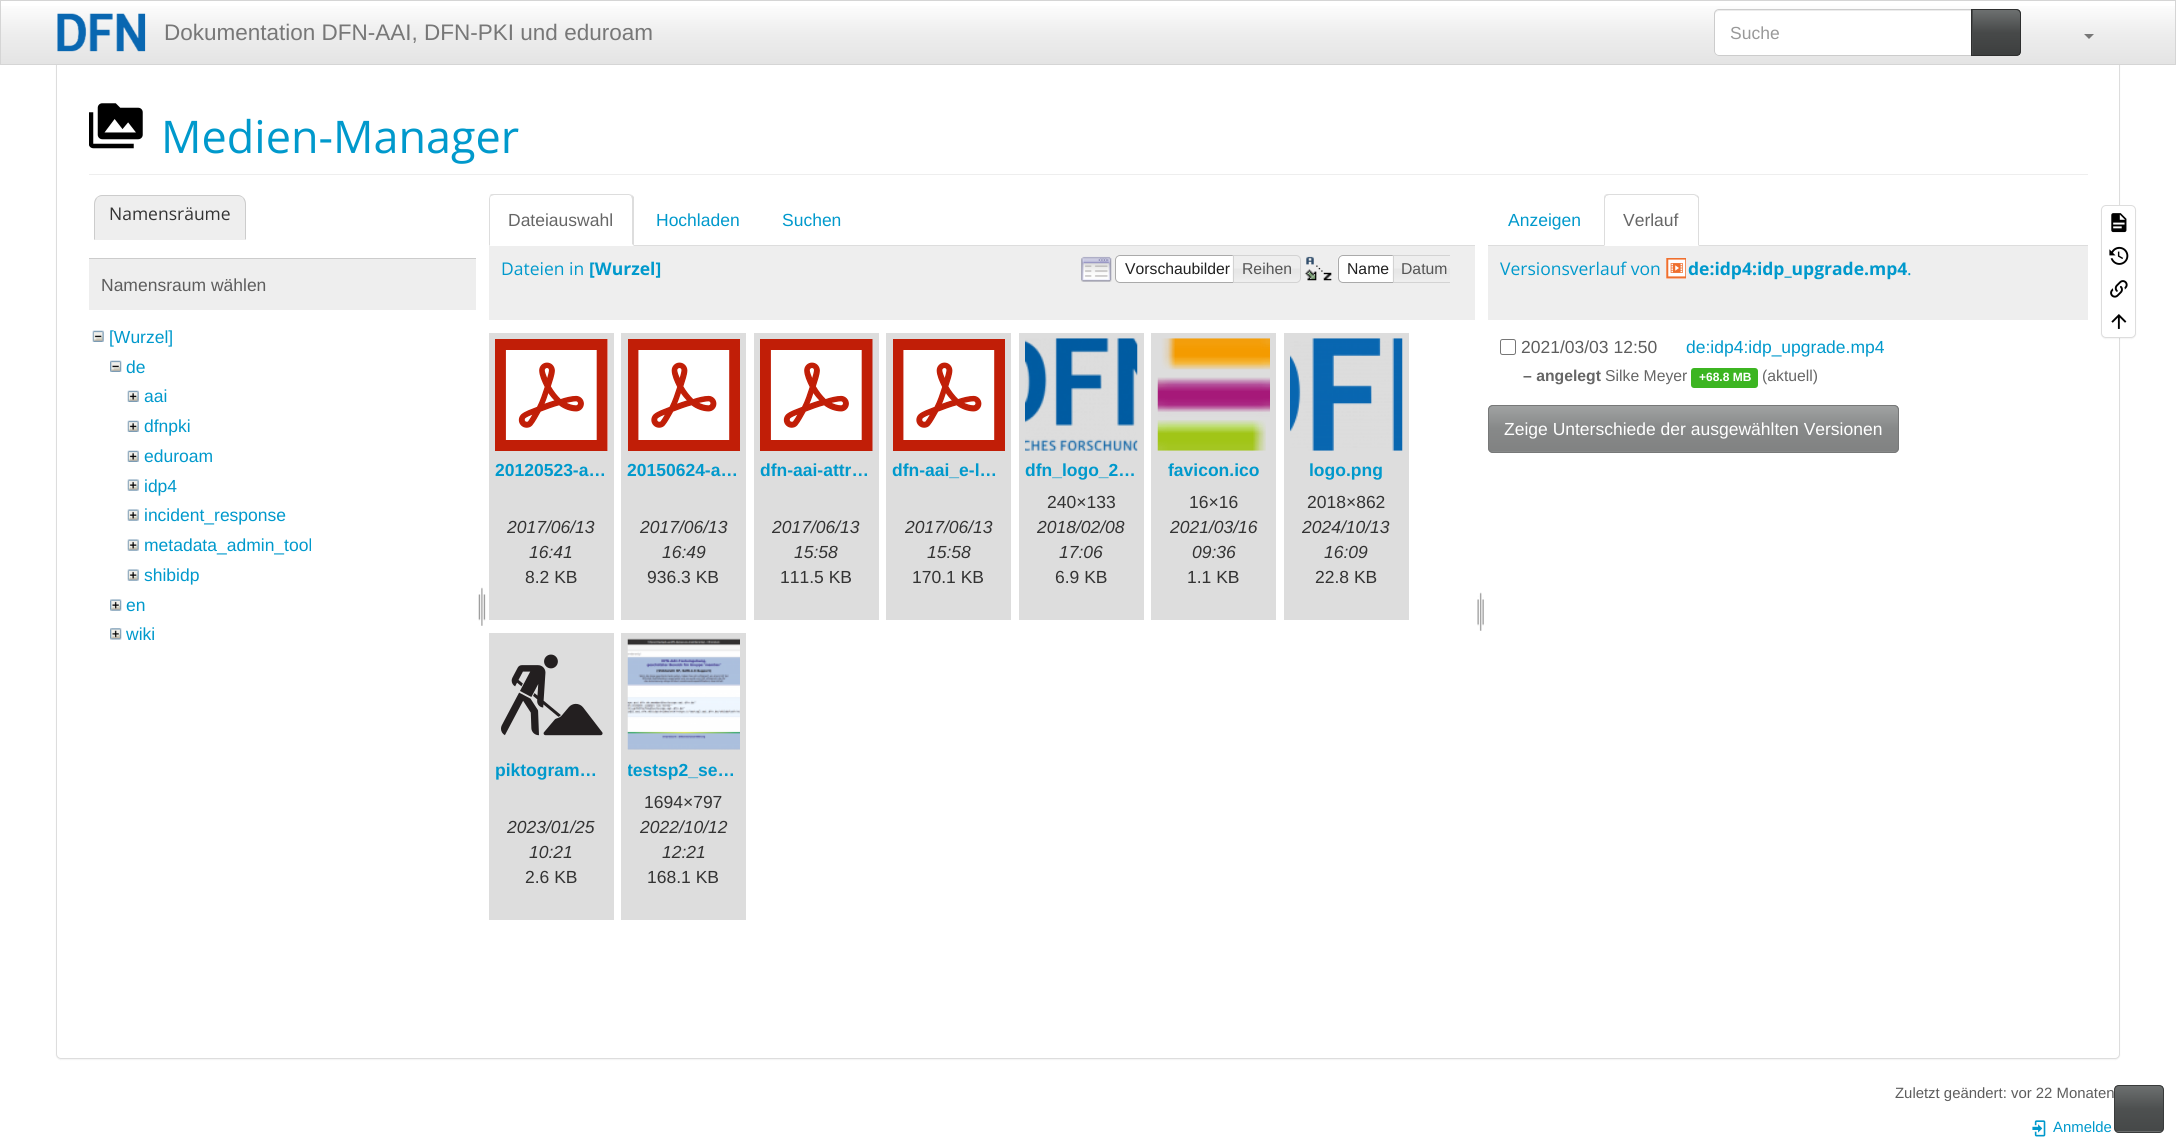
#include <cairo.h>
#include <math.h>
#include <stddef.h>


static void ink(cairo_t *ctx, unsigned color) {
    cairo_set_source_rgb(ctx, (color >> 16) / 255.0, (color >> 8 & 255) / 255.0, (color & 255) / 255.0);
}

static void round_path(cairo_t *ctx, double x, double y, double w, double h, double r) {
    cairo_new_sub_path(ctx);
    cairo_arc(ctx, x + w - r, y + h - r, r, 0, M_PI / 2);
    cairo_arc(ctx, x + r, y + h - r, r, M_PI / 2, M_PI);
    cairo_arc(ctx, x + r, y + r, r, M_PI, 1.5 * M_PI);
    cairo_arc(ctx, x + w - r, y + r, r, 1.5 * M_PI, 2 * M_PI);
    cairo_close_path(ctx);
}

static void blur_box(cairo_t *ctx, double x, double y, double w, double h, double r, double blur, double alpha) {
    cairo_push_group_with_content(ctx, CAIRO_CONTENT_ALPHA);
    cairo_set_operator(ctx, CAIRO_OPERATOR_SOURCE);
    for (int i = 15; i >= -15 && fmin(w, h) + blur * i / 3 > 0; i -= 2) {
        double e = blur * i / 6;
        cairo_set_source_rgba(ctx, 0, 0, 0, alpha * erfc((i - 1) / 8.5) / 2);
        round_path(ctx, x - e, y - e, w + 2 * e, h + 2 * e, fmax(0, fmin(r + e + blur * .6, fmin(w, h) / 2 + e)));
        cairo_fill(ctx);
    }
    cairo_pattern_t *soft = cairo_pop_group(ctx);
    cairo_mask(ctx, soft);
    cairo_pattern_destroy(soft);
}

static void paste(cairo_t *ctx, const char *path, double x, double y, double w, double h) {
    cairo_surface_t *image = cairo_image_surface_create_from_png(path);
    cairo_save(ctx);
    cairo_set_source_surface(ctx, image, x, y);
    cairo_rectangle(ctx, x, y, w, h);
    cairo_fill(ctx);
    cairo_restore(ctx);
    cairo_surface_destroy(image);
}

int main(void) {
    cairo_surface_t *surface = cairo_image_surface_create(CAIRO_FORMAT_RGB24, 2176, 1144);
    cairo_t *ctx = cairo_create(surface);
    cairo_font_options_t *options = cairo_font_options_create();
    cairo_font_options_set_hint_metrics(options, CAIRO_HINT_METRICS_OFF);
    cairo_font_options_set_hint_style(options, CAIRO_HINT_STYLE_NONE);
    cairo_set_font_options(ctx, options);
    cairo_set_miter_limit(ctx, 4);
    cairo_pattern_t *gradient;
    ink(ctx, 0xFFFFFF);
    cairo_paint(ctx);
    ink(ctx, 0x000000);
    blur_box(ctx, 56, 51, 2064, 1009, 5, 0.5, 0.05);
    ink(ctx, 0xFFFFFF);
    round_path(ctx, 56.5, 50.5, 2063, 1008, 4.5);
    cairo_fill_preserve(ctx);
    ink(ctx, 0xDDDDDD);
    cairo_set_line_width(ctx, 1);
    cairo_stroke(ctx);
    gradient = cairo_pattern_create_linear(1088, 1.2, 1088, 64);
    cairo_pattern_add_color_stop_rgba(gradient, 0, 1, 1, 1, 1);
    cairo_pattern_add_color_stop_rgba(gradient, 0.5, 0.933, 0.933, 0.933, 1);
    cairo_pattern_add_color_stop_rgba(gradient, 1, 0.894, 0.894, 0.894, 1);
    cairo_set_source(ctx, gradient);
    cairo_pattern_destroy(gradient);
    cairo_rectangle(ctx, 1, 6, 2174, 58);
    cairo_fill(ctx);
    cairo_rectangle(ctx, 0.5, 0.5, 2175, 64);
    ink(ctx, 0xD5D5D5);
    cairo_stroke(ctx);
    paste(ctx, "media/1.png", 57, 13, 89, 39);
    cairo_select_font_face(ctx, "Liberation Sans", CAIRO_FONT_SLANT_NORMAL, CAIRO_FONT_WEIGHT_NORMAL);
    cairo_set_font_size(ctx, 22.5);
    ink(ctx, 0x777777);
    cairo_move_to(ctx, 164, 40);
    cairo_show_text(ctx, "Dokumentation DFN-AAI, DFN-PKI und eduroam");
    ink(ctx, 0xFFFFFF);
    cairo_new_path(ctx);
    cairo_move_to(ctx, 1719, 9);
    cairo_line_to(ctx, 1973, 9);
    cairo_line_to(ctx, 1973, 56);
    cairo_line_to(ctx, 1719, 56);
    cairo_curve_to(ctx, 1716, 56, 1714, 54, 1714, 51);
    cairo_line_to(ctx, 1714, 14);
    cairo_curve_to(ctx, 1714, 11, 1716, 9, 1719, 9);
    cairo_close_path(ctx);
    cairo_fill(ctx);
    ink(ctx, 0xECECEC);
    cairo_new_path(ctx);
    cairo_move_to(ctx, 1719, 11);
    cairo_line_to(ctx, 1971, 11);
    cairo_line_to(ctx, 1971, 10);
    cairo_line_to(ctx, 1719, 10);
    cairo_curve_to(ctx, 1717, 10, 1715, 12, 1715, 14);
    cairo_line_to(ctx, 1715, 15);
    cairo_curve_to(ctx, 1715, 13, 1717, 11, 1719, 11);
    cairo_close_path(ctx);
    cairo_fill(ctx);
    cairo_new_path(ctx);
    cairo_move_to(ctx, 1719, 9.5);
    cairo_line_to(ctx, 1972.5, 9.5);
    cairo_line_to(ctx, 1972.5, 55.5);
    cairo_line_to(ctx, 1719, 55.5);
    cairo_curve_to(ctx, 1716.5, 55.5, 1714.5, 53.5, 1714.5, 51);
    cairo_line_to(ctx, 1714.5, 14);
    cairo_curve_to(ctx, 1714.5, 11.5, 1716.5, 9.5, 1719, 9.5);
    cairo_close_path(ctx);
    ink(ctx, 0xCCCCCC);
    cairo_stroke(ctx);
    cairo_set_font_size(ctx, 17.5);
    ink(ctx, 0x999999);
    cairo_move_to(ctx, 1730, 39);
    cairo_show_text(ctx, "Suche");
    ink(ctx, 0x474949);
    cairo_new_path(ctx);
    cairo_move_to(ctx, 1971, 9);
    cairo_line_to(ctx, 2016, 9);
    cairo_curve_to(ctx, 2019, 9, 2021, 11, 2021, 14);
    cairo_line_to(ctx, 2021, 51);
    cairo_curve_to(ctx, 2021, 54, 2019, 56, 2016, 56);
    cairo_line_to(ctx, 1971, 56);
    cairo_close_path(ctx);
    cairo_fill(ctx);
    gradient = cairo_pattern_create_linear(1996, 10, 1996, 55);
    cairo_pattern_add_color_stop_rgba(gradient, 0, 0.427, 0.439, 0.439, 1);
    cairo_pattern_add_color_stop_rgba(gradient, 0.5, 0.278, 0.286, 0.286, 1);
    cairo_pattern_add_color_stop_rgba(gradient, 1, 0.239, 0.247, 0.247, 1);
    cairo_set_source(ctx, gradient);
    cairo_pattern_destroy(gradient);
    cairo_rectangle(ctx, 1973, 10, 47, 45);
    cairo_fill(ctx);
    cairo_new_path(ctx);
    cairo_move_to(ctx, 1971.5, 9.5);
    cairo_line_to(ctx, 2016, 9.5);
    cairo_curve_to(ctx, 2018.5, 9.5, 2020.5, 11.5, 2020.5, 14);
    cairo_line_to(ctx, 2020.5, 51);
    cairo_curve_to(ctx, 2020.5, 53.5, 2018.5, 55.5, 2016, 55.5);
    cairo_line_to(ctx, 1971.5, 55.5);
    cairo_close_path(ctx);
    ink(ctx, 0x2E2F2F);
    cairo_stroke(ctx);
    ink(ctx, 0x777777);
    cairo_new_path(ctx);
    cairo_move_to(ctx, 2084, 34);
    cairo_line_to(ctx, 2094, 34);
    cairo_line_to(ctx, 2089, 39);
    cairo_close_path(ctx);
    cairo_fill(ctx);
    ink(ctx, 0xEEEEEE);
    cairo_rectangle(ctx, 89, 174, 1999, 1);
    cairo_fill(ctx);
    paste(ctx, "media/2.png", 89, 103, 54, 46);
    cairo_select_font_face(ctx, "Open Sans", CAIRO_FONT_SLANT_NORMAL, CAIRO_FONT_WEIGHT_NORMAL);
    cairo_set_font_size(ctx, 45);
    ink(ctx, 0x0099CC);
    cairo_move_to(ctx, 161, 153);
    cairo_show_text(ctx, "Medien-Manager");
    ink(ctx, 0xEEEEEE);
    cairo_new_path(ctx);
    cairo_move_to(ctx, 103, 195);
    cairo_line_to(ctx, 237, 195);
    cairo_curve_to(ctx, 242, 195, 246, 199, 246, 204);
    cairo_line_to(ctx, 246, 240);
    cairo_line_to(ctx, 94, 240);
    cairo_line_to(ctx, 94, 204);
    cairo_curve_to(ctx, 94, 199, 98, 195, 103, 195);
    cairo_close_path(ctx);
    cairo_fill(ctx);
    ink(ctx, 0xCCCCCC);
    cairo_new_path(ctx);
    cairo_move_to(ctx, 102, 195);
    cairo_curve_to(ctx, 100, 195, 98, 196, 96, 198);
    cairo_line_to(ctx, 97, 198);
    cairo_curve_to(ctx, 98, 197, 100, 196, 102, 196);
    cairo_line_to(ctx, 238, 196);
    cairo_curve_to(ctx, 240, 196, 242, 197, 243, 198);
    cairo_line_to(ctx, 244, 198);
    cairo_curve_to(ctx, 242, 196, 240, 195, 238, 195);
    cairo_close_path(ctx);
    cairo_fill(ctx);
    cairo_new_path(ctx);
    cairo_move_to(ctx, 244, 198);
    cairo_curve_to(ctx, 245, 199, 246, 202, 246, 204);
    cairo_line_to(ctx, 246, 240);
    cairo_line_to(ctx, 245, 239);
    cairo_line_to(ctx, 245, 204);
    cairo_curve_to(ctx, 245, 202, 244, 200, 243, 198);
    cairo_close_path(ctx);
    cairo_fill(ctx);
    ink(ctx, 0xEEEEEE);
    cairo_new_path(ctx);
    cairo_move_to(ctx, 94, 240);
    cairo_line_to(ctx, 246, 240);
    cairo_line_to(ctx, 245, 239);
    cairo_line_to(ctx, 95, 239);
    cairo_close_path(ctx);
    cairo_fill(ctx);
    ink(ctx, 0xCCCCCC);
    cairo_new_path(ctx);
    cairo_move_to(ctx, 96, 198);
    cairo_curve_to(ctx, 95, 199, 94, 202, 94, 204);
    cairo_line_to(ctx, 94, 240);
    cairo_line_to(ctx, 95, 239);
    cairo_line_to(ctx, 95, 204);
    cairo_curve_to(ctx, 95, 202, 96, 200, 97, 198);
    cairo_close_path(ctx);
    cairo_fill(ctx);
    cairo_set_font_size(ctx, 17.5);
    ink(ctx, 0x333333);
    cairo_move_to(ctx, 109, 220);
    cairo_show_text(ctx, "Namensräume");
    ink(ctx, 0xEEEEEE);
    cairo_rectangle(ctx, 89, 259, 387, 51);
    cairo_fill(ctx);
    ink(ctx, 0xCCCCCC);
    cairo_rectangle(ctx, 89, 258, 387, 1);
    cairo_fill(ctx);
    cairo_select_font_face(ctx, "Liberation Sans", CAIRO_FONT_SLANT_NORMAL, CAIRO_FONT_WEIGHT_NORMAL);
    ink(ctx, 0x5D5D5D);
    cairo_move_to(ctx, 101, 291);
    cairo_show_text(ctx, "Namensraum wählen");
    paste(ctx, "media/3.png", 92, 330, 12, 12);
    ink(ctx, 0x0099CC);
    cairo_move_to(ctx, 109, 343);
    cairo_show_text(ctx, "[Wurzel]");
    paste(ctx, "media/4.png", 110, 360, 12, 12);
    cairo_move_to(ctx, 126, 373);
    cairo_show_text(ctx, "de");
    paste(ctx, "media/5.png", 127, 390, 12, 12);
    cairo_move_to(ctx, 144, 402);
    cairo_show_text(ctx, "aai");
    paste(ctx, "media/5.png", 127, 420, 12, 12);
    cairo_move_to(ctx, 144, 432);
    cairo_show_text(ctx, "dfnpki");
    paste(ctx, "media/5.png", 127, 450, 12, 12);
    cairo_move_to(ctx, 144, 462);
    cairo_show_text(ctx, "eduroam");
    paste(ctx, "media/6.png", 127, 479, 12, 12);
    cairo_move_to(ctx, 144, 492);
    cairo_show_text(ctx, "idp4");
    paste(ctx, "media/6.png", 127, 509, 12, 12);
    cairo_move_to(ctx, 144, 521);
    cairo_show_text(ctx, "incident_response");
    paste(ctx, "media/6.png", 127, 539, 12, 12);
    cairo_move_to(ctx, 144, 551);
    cairo_show_text(ctx, "metadata_admin_tool");
    paste(ctx, "media/6.png", 127, 569, 12, 12);
    cairo_move_to(ctx, 144, 581);
    cairo_show_text(ctx, "shibidp");
    paste(ctx, "media/7.png", 110, 599, 12, 12);
    cairo_move_to(ctx, 126, 611);
    cairo_show_text(ctx, "en");
    paste(ctx, "media/8.png", 110, 628, 12, 12);
    cairo_move_to(ctx, 126, 640);
    cairo_show_text(ctx, "wiki");
    paste(ctx, "media/9.png", 478, 587, 8, 39);
    ink(ctx, 0xDDDDDD);
    cairo_rectangle(ctx, 634, 245, 841, 1);
    cairo_fill(ctx);
    cairo_new_path(ctx);
    cairo_move_to(ctx, 494, 194);
    cairo_curve_to(ctx, 492, 194, 491, 194, 490, 195);
    cairo_line_to(ctx, 491, 196);
    cairo_line_to(ctx, 494, 195);
    cairo_line_to(ctx, 629, 195);
    cairo_line_to(ctx, 631, 196);
    cairo_line_to(ctx, 632, 195);
    cairo_line_to(ctx, 629, 194);
    cairo_close_path(ctx);
    cairo_fill(ctx);
    cairo_new_path(ctx);
    cairo_move_to(ctx, 632, 195);
    cairo_line_to(ctx, 634, 197);
    cairo_line_to(ctx, 634, 246);
    cairo_line_to(ctx, 632, 244);
    cairo_line_to(ctx, 632, 199);
    cairo_line_to(ctx, 631, 196);
    cairo_close_path(ctx);
    cairo_fill(ctx);
    cairo_new_path(ctx);
    cairo_move_to(ctx, 490, 195);
    cairo_curve_to(ctx, 490, 196, 489, 198, 489, 199);
    cairo_line_to(ctx, 489, 246);
    cairo_line_to(ctx, 490, 245);
    cairo_line_to(ctx, 490, 199);
    cairo_curve_to(ctx, 490, 198, 490, 197, 491, 196);
    cairo_close_path(ctx);
    cairo_fill(ctx);
    ink(ctx, 0x666666);
    cairo_move_to(ctx, 508, 226);
    cairo_show_text(ctx, "Dateiauswahl");
    ink(ctx, 0x0099CC);
    cairo_move_to(ctx, 656, 226);
    cairo_show_text(ctx, "Hochladen");
    cairo_move_to(ctx, 782, 226);
    cairo_show_text(ctx, "Suchen");
    ink(ctx, 0xEEEEEE);
    cairo_rectangle(ctx, 489, 246, 986, 74);
    cairo_fill(ctx);
    cairo_select_font_face(ctx, "Open Sans", CAIRO_FONT_SLANT_NORMAL, CAIRO_FONT_WEIGHT_NORMAL);
    ink(ctx, 0x0099CC);
    cairo_move_to(ctx, 501, 275);
    cairo_show_text(ctx, "Dateien in");
    cairo_select_font_face(ctx, "Open Sans", CAIRO_FONT_SLANT_NORMAL, CAIRO_FONT_WEIGHT_BOLD);
    cairo_move_to(ctx, 589, 275);
    cairo_show_text(ctx, "[Wurzel]");
    paste(ctx, "media/10.png", 1081, 256, 31, 26);
    ink(ctx, 0xFFFFFF);
    cairo_new_path(ctx);
    cairo_move_to(ctx, 1120, 255);
    cairo_line_to(ctx, 1239, 255);
    cairo_line_to(ctx, 1239, 283);
    cairo_line_to(ctx, 1120, 283);
    cairo_curve_to(ctx, 1117, 283, 1115, 281, 1115, 278);
    cairo_line_to(ctx, 1115, 260);
    cairo_curve_to(ctx, 1115, 257, 1117, 255, 1120, 255);
    cairo_close_path(ctx);
    cairo_fill(ctx);
    paste(ctx, "media/11.png", 1115, 255, 4, 3);
    cairo_new_path(ctx);
    cairo_move_to(ctx, 1120, 255.5);
    cairo_line_to(ctx, 1238.5, 255.5);
    cairo_line_to(ctx, 1238.5, 282.5);
    cairo_line_to(ctx, 1120, 282.5);
    cairo_curve_to(ctx, 1117.5, 282.5, 1115.5, 280.5, 1115.5, 278);
    cairo_line_to(ctx, 1115.5, 260);
    cairo_curve_to(ctx, 1115.5, 257.5, 1117.5, 255.5, 1120, 255.5);
    cairo_close_path(ctx);
    ink(ctx, 0xAAAAAA);
    cairo_stroke(ctx);
    cairo_select_font_face(ctx, "Liberation Sans", CAIRO_FONT_SLANT_NORMAL, CAIRO_FONT_WEIGHT_NORMAL);
    cairo_set_font_size(ctx, 15.75);
    ink(ctx, 0x212121);
    cairo_move_to(ctx, 1125, 274);
    cairo_show_text(ctx, "Vorschaubilder");
    paste(ctx, "media/12.png", 1232, 255, 69, 27);
    cairo_new_path(ctx);
    cairo_move_to(ctx, 1233.5, 255.5);
    cairo_line_to(ctx, 1296, 255.5);
    cairo_curve_to(ctx, 1298.5, 255.5, 1300.5, 257.5, 1300.5, 260);
    cairo_line_to(ctx, 1300.5, 278);
    cairo_curve_to(ctx, 1300.5, 280.5, 1298.5, 282.5, 1296, 282.5);
    cairo_line_to(ctx, 1233.5, 282.5);
    cairo_close_path(ctx);
    ink(ctx, 0xD3D3D3);
    cairo_stroke(ctx);
    ink(ctx, 0x555555);
    cairo_move_to(ctx, 1242, 274);
    cairo_show_text(ctx, "Reihen");
    paste(ctx, "media/13.png", 1304, 256, 28, 25);
    ink(ctx, 0xFFFFFF);
    cairo_new_path(ctx);
    cairo_move_to(ctx, 1343, 255);
    cairo_line_to(ctx, 1399, 255);
    cairo_line_to(ctx, 1399, 283);
    cairo_line_to(ctx, 1343, 283);
    cairo_curve_to(ctx, 1340, 283, 1338, 281, 1338, 278);
    cairo_line_to(ctx, 1338, 260);
    cairo_curve_to(ctx, 1338, 257, 1340, 255, 1343, 255);
    cairo_close_path(ctx);
    cairo_fill(ctx);
    paste(ctx, "media/14.png", 1337, 255, 5, 22);
    cairo_new_path(ctx);
    cairo_move_to(ctx, 1343, 255.5);
    cairo_line_to(ctx, 1398.5, 255.5);
    cairo_line_to(ctx, 1398.5, 282.5);
    cairo_line_to(ctx, 1343, 282.5);
    cairo_curve_to(ctx, 1340.5, 282.5, 1338.5, 280.5, 1338.5, 278);
    cairo_line_to(ctx, 1338.5, 260);
    cairo_curve_to(ctx, 1338.5, 257.5, 1340.5, 255.5, 1343, 255.5);
    cairo_close_path(ctx);
    ink(ctx, 0xAAAAAA);
    cairo_stroke(ctx);
    ink(ctx, 0x212121);
    cairo_move_to(ctx, 1347, 274);
    cairo_show_text(ctx, "Name");
    paste(ctx, "media/15.png", 1392, 255, 58, 27);
    cairo_save(ctx);
    cairo_rectangle(ctx, 1071, 255, 379, 28);
    cairo_clip(ctx);
    cairo_new_path(ctx);
    cairo_move_to(ctx, 1393.5, 255.5);
    cairo_line_to(ctx, 1451, 255.5);
    cairo_curve_to(ctx, 1453.5, 255.5, 1455.5, 257.5, 1455.5, 260);
    cairo_line_to(ctx, 1455.5, 278);
    cairo_curve_to(ctx, 1455.5, 280.5, 1453.5, 282.5, 1451, 282.5);
    cairo_line_to(ctx, 1393.5, 282.5);
    cairo_close_path(ctx);
    ink(ctx, 0xD3D3D3);
    cairo_stroke(ctx);
    cairo_restore(ctx);
    ink(ctx, 0x555555);
    cairo_move_to(ctx, 1401, 274);
    cairo_show_text(ctx, "Datum");
    ink(ctx, 0xDDDDDD);
    cairo_rectangle(ctx, 489, 333, 125, 287);
    cairo_fill(ctx);
    paste(ctx, "media/16.png", 495, 339, 113, 112);
    cairo_select_font_face(ctx, "Liberation Sans", CAIRO_FONT_SLANT_NORMAL, CAIRO_FONT_WEIGHT_BOLD);
    cairo_set_font_size(ctx, 17.5);
    ink(ctx, 0x0099CC);
    cairo_move_to(ctx, 495, 476);
    cairo_show_text(ctx, "20120523-a…");
    cairo_select_font_face(ctx, "Liberation Sans", CAIRO_FONT_SLANT_ITALIC, CAIRO_FONT_WEIGHT_NORMAL);
    ink(ctx, 0x333333);
    cairo_move_to(ctx, 507, 533);
    cairo_show_text(ctx, "2017/06/13");
    cairo_move_to(ctx, 529, 558);
    cairo_show_text(ctx, "16:41");
    cairo_select_font_face(ctx, "Liberation Sans", CAIRO_FONT_SLANT_NORMAL, CAIRO_FONT_WEIGHT_NORMAL);
    cairo_move_to(ctx, 525, 583);
    cairo_show_text(ctx, "8.2 KB");
    ink(ctx, 0xDDDDDD);
    cairo_rectangle(ctx, 621, 333, 125, 287);
    cairo_fill(ctx);
    paste(ctx, "media/17.png", 628, 339, 112, 112);
    cairo_select_font_face(ctx, "Liberation Sans", CAIRO_FONT_SLANT_NORMAL, CAIRO_FONT_WEIGHT_BOLD);
    ink(ctx, 0x0099CC);
    cairo_move_to(ctx, 627, 476);
    cairo_show_text(ctx, "20150624-a…");
    cairo_select_font_face(ctx, "Liberation Sans", CAIRO_FONT_SLANT_ITALIC, CAIRO_FONT_WEIGHT_NORMAL);
    ink(ctx, 0x333333);
    cairo_move_to(ctx, 640, 533);
    cairo_show_text(ctx, "2017/06/13");
    cairo_move_to(ctx, 662, 558);
    cairo_show_text(ctx, "16:49");
    cairo_select_font_face(ctx, "Liberation Sans", CAIRO_FONT_SLANT_NORMAL, CAIRO_FONT_WEIGHT_NORMAL);
    cairo_move_to(ctx, 647, 583);
    cairo_show_text(ctx, "936.3 KB");
    ink(ctx, 0xDDDDDD);
    cairo_rectangle(ctx, 754, 333, 125, 287);
    cairo_fill(ctx);
    paste(ctx, "media/18.png", 760, 339, 113, 112);
    cairo_select_font_face(ctx, "Liberation Sans", CAIRO_FONT_SLANT_NORMAL, CAIRO_FONT_WEIGHT_BOLD);
    ink(ctx, 0x0099CC);
    cairo_move_to(ctx, 760, 476);
    cairo_show_text(ctx, "dfn-aai-attr…");
    cairo_select_font_face(ctx, "Liberation Sans", CAIRO_FONT_SLANT_ITALIC, CAIRO_FONT_WEIGHT_NORMAL);
    ink(ctx, 0x333333);
    cairo_move_to(ctx, 772, 533);
    cairo_show_text(ctx, "2017/06/13");
    cairo_move_to(ctx, 794, 558);
    cairo_show_text(ctx, "15:58");
    cairo_select_font_face(ctx, "Liberation Sans", CAIRO_FONT_SLANT_NORMAL, CAIRO_FONT_WEIGHT_NORMAL);
    cairo_move_to(ctx, 780, 583);
    cairo_show_text(ctx, "111.5 KB");
    ink(ctx, 0xDDDDDD);
    cairo_rectangle(ctx, 886, 333, 125, 287);
    cairo_fill(ctx);
    paste(ctx, "media/17.png", 893, 339, 112, 112);
    cairo_select_font_face(ctx, "Liberation Sans", CAIRO_FONT_SLANT_NORMAL, CAIRO_FONT_WEIGHT_BOLD);
    ink(ctx, 0x0099CC);
    cairo_move_to(ctx, 892, 476);
    cairo_show_text(ctx, "dfn-aai_e-l…");
    cairo_select_font_face(ctx, "Liberation Sans", CAIRO_FONT_SLANT_ITALIC, CAIRO_FONT_WEIGHT_NORMAL);
    ink(ctx, 0x333333);
    cairo_move_to(ctx, 905, 533);
    cairo_show_text(ctx, "2017/06/13");
    cairo_move_to(ctx, 927, 558);
    cairo_show_text(ctx, "15:58");
    cairo_select_font_face(ctx, "Liberation Sans", CAIRO_FONT_SLANT_NORMAL, CAIRO_FONT_WEIGHT_NORMAL);
    cairo_move_to(ctx, 912, 583);
    cairo_show_text(ctx, "170.1 KB");
    ink(ctx, 0xDDDDDD);
    cairo_rectangle(ctx, 1019, 333, 125, 287);
    cairo_fill(ctx);
    paste(ctx, "media/19.png", 1025, 338, 113, 113);
    cairo_select_font_face(ctx, "Liberation Sans", CAIRO_FONT_SLANT_NORMAL, CAIRO_FONT_WEIGHT_BOLD);
    ink(ctx, 0x0099CC);
    cairo_move_to(ctx, 1025, 476);
    cairo_show_text(ctx, "dfn_logo_2…");
    cairo_select_font_face(ctx, "Liberation Sans", CAIRO_FONT_SLANT_NORMAL, CAIRO_FONT_WEIGHT_NORMAL);
    ink(ctx, 0x333333);
    cairo_move_to(ctx, 1047, 508);
    cairo_show_text(ctx, "240×133");
    cairo_select_font_face(ctx, "Liberation Sans", CAIRO_FONT_SLANT_ITALIC, CAIRO_FONT_WEIGHT_NORMAL);
    cairo_move_to(ctx, 1037, 533);
    cairo_show_text(ctx, "2018/02/08");
    cairo_move_to(ctx, 1059, 558);
    cairo_show_text(ctx, "17:06");
    cairo_select_font_face(ctx, "Liberation Sans", CAIRO_FONT_SLANT_NORMAL, CAIRO_FONT_WEIGHT_NORMAL);
    cairo_move_to(ctx, 1055, 583);
    cairo_show_text(ctx, "6.9 KB");
    ink(ctx, 0xDDDDDD);
    cairo_rectangle(ctx, 1151, 333, 125, 287);
    cairo_fill(ctx);
    paste(ctx, "media/20.png", 1157, 338, 113, 113);
    cairo_select_font_face(ctx, "Liberation Sans", CAIRO_FONT_SLANT_NORMAL, CAIRO_FONT_WEIGHT_BOLD);
    ink(ctx, 0x0099CC);
    cairo_move_to(ctx, 1168, 476);
    cairo_show_text(ctx, "favicon.ico");
    cairo_select_font_face(ctx, "Liberation Sans", CAIRO_FONT_SLANT_NORMAL, CAIRO_FONT_WEIGHT_NORMAL);
    ink(ctx, 0x333333);
    cairo_move_to(ctx, 1189, 508);
    cairo_show_text(ctx, "16×16");
    cairo_select_font_face(ctx, "Liberation Sans", CAIRO_FONT_SLANT_ITALIC, CAIRO_FONT_WEIGHT_NORMAL);
    cairo_move_to(ctx, 1170, 533);
    cairo_show_text(ctx, "2021/03/16");
    cairo_move_to(ctx, 1192, 558);
    cairo_show_text(ctx, "09:36");
    cairo_select_font_face(ctx, "Liberation Sans", CAIRO_FONT_SLANT_NORMAL, CAIRO_FONT_WEIGHT_NORMAL);
    cairo_move_to(ctx, 1187, 583);
    cairo_show_text(ctx, "1.1 KB");
    ink(ctx, 0xDDDDDD);
    cairo_rectangle(ctx, 1284, 333, 125, 287);
    cairo_fill(ctx);
    paste(ctx, "media/21.png", 1290, 338, 113, 113);
    cairo_select_font_face(ctx, "Liberation Sans", CAIRO_FONT_SLANT_NORMAL, CAIRO_FONT_WEIGHT_BOLD);
    ink(ctx, 0x0099CC);
    cairo_move_to(ctx, 1309, 476);
    cairo_show_text(ctx, "logo.png");
    cairo_select_font_face(ctx, "Liberation Sans", CAIRO_FONT_SLANT_NORMAL, CAIRO_FONT_WEIGHT_NORMAL);
    ink(ctx, 0x333333);
    cairo_move_to(ctx, 1307, 508);
    cairo_show_text(ctx, "2018×862");
    cairo_select_font_face(ctx, "Liberation Sans", CAIRO_FONT_SLANT_ITALIC, CAIRO_FONT_WEIGHT_NORMAL);
    cairo_move_to(ctx, 1302, 533);
    cairo_show_text(ctx, "2024/10/13");
    cairo_move_to(ctx, 1324, 558);
    cairo_show_text(ctx, "16:09");
    cairo_select_font_face(ctx, "Liberation Sans", CAIRO_FONT_SLANT_NORMAL, CAIRO_FONT_WEIGHT_NORMAL);
    cairo_move_to(ctx, 1315, 583);
    cairo_show_text(ctx, "22.8 KB");
    ink(ctx, 0xDDDDDD);
    cairo_rectangle(ctx, 489, 633, 125, 287);
    cairo_fill(ctx);
    paste(ctx, "media/22.png", 501, 654, 102, 82);
    cairo_select_font_face(ctx, "Liberation Sans", CAIRO_FONT_SLANT_NORMAL, CAIRO_FONT_WEIGHT_BOLD);
    ink(ctx, 0x0099CC);
    cairo_move_to(ctx, 495, 776);
    cairo_show_text(ctx, "piktogram…");
    cairo_select_font_face(ctx, "Liberation Sans", CAIRO_FONT_SLANT_ITALIC, CAIRO_FONT_WEIGHT_NORMAL);
    ink(ctx, 0x333333);
    cairo_move_to(ctx, 507, 833);
    cairo_show_text(ctx, "2023/01/25");
    cairo_move_to(ctx, 529, 858);
    cairo_show_text(ctx, "10:21");
    cairo_select_font_face(ctx, "Liberation Sans", CAIRO_FONT_SLANT_NORMAL, CAIRO_FONT_WEIGHT_NORMAL);
    cairo_move_to(ctx, 525, 883);
    cairo_show_text(ctx, "2.6 KB");
    ink(ctx, 0xDDDDDD);
    cairo_rectangle(ctx, 621, 633, 125, 287);
    cairo_fill(ctx);
    paste(ctx, "media/23.png", 627, 638, 113, 112);
    cairo_save(ctx);
    cairo_rectangle(ctx, 628, 751, 112, 38);
    cairo_clip(ctx);
    cairo_select_font_face(ctx, "Liberation Sans", CAIRO_FONT_SLANT_NORMAL, CAIRO_FONT_WEIGHT_BOLD);
    ink(ctx, 0x0099CC);
    cairo_move_to(ctx, 627, 776);
    cairo_show_text(ctx, "testsp2_se…");
    cairo_restore(ctx);
    ink(ctx, 0x333333);
    cairo_move_to(ctx, 644, 808);
    cairo_show_text(ctx, "1694×797");
    cairo_select_font_face(ctx, "Liberation Sans", CAIRO_FONT_SLANT_ITALIC, CAIRO_FONT_WEIGHT_NORMAL);
    cairo_move_to(ctx, 640, 833);
    cairo_show_text(ctx, "2022/10/12");
    cairo_move_to(ctx, 662, 858);
    cairo_show_text(ctx, "12:21");
    cairo_select_font_face(ctx, "Liberation Sans", CAIRO_FONT_SLANT_NORMAL, CAIRO_FONT_WEIGHT_NORMAL);
    cairo_move_to(ctx, 647, 883);
    cairo_show_text(ctx, "168.1 KB");
    paste(ctx, "media/24.png", 1477, 592, 7, 39);
    ink(ctx, 0xDDDDDD);
    cairo_rectangle(ctx, 1488, 245, 600, 1);
    cairo_fill(ctx);
    ink(ctx, 0x0099CC);
    cairo_move_to(ctx, 1508, 226);
    cairo_show_text(ctx, "Anzeigen");
    ink(ctx, 0xFFFFFF);
    cairo_new_path(ctx);
    cairo_move_to(ctx, 1609, 194);
    cairo_line_to(ctx, 1694, 194);
    cairo_curve_to(ctx, 1697, 194, 1699, 196, 1699, 199);
    cairo_line_to(ctx, 1699, 246);
    cairo_line_to(ctx, 1604, 246);
    cairo_line_to(ctx, 1604, 199);
    cairo_curve_to(ctx, 1604, 196, 1606, 194, 1609, 194);
    cairo_close_path(ctx);
    cairo_fill(ctx);
    ink(ctx, 0xDDDDDD);
    cairo_new_path(ctx);
    cairo_move_to(ctx, 1609, 194);
    cairo_curve_to(ctx, 1608, 194, 1606, 194, 1605, 195);
    cairo_line_to(ctx, 1606, 196);
    cairo_line_to(ctx, 1609, 195);
    cairo_line_to(ctx, 1694, 195);
    cairo_line_to(ctx, 1696, 196);
    cairo_line_to(ctx, 1697, 195);
    cairo_line_to(ctx, 1694, 194);
    cairo_close_path(ctx);
    cairo_fill(ctx);
    cairo_new_path(ctx);
    cairo_move_to(ctx, 1697, 195);
    cairo_line_to(ctx, 1699, 197);
    cairo_line_to(ctx, 1699, 246);
    cairo_line_to(ctx, 1698, 245);
    cairo_line_to(ctx, 1698, 198);
    cairo_line_to(ctx, 1696, 196);
    cairo_close_path(ctx);
    cairo_fill(ctx);
    cairo_new_path(ctx);
    cairo_move_to(ctx, 1605, 195);
    cairo_curve_to(ctx, 1604, 196, 1604, 198, 1604, 199);
    cairo_line_to(ctx, 1604, 246);
    cairo_line_to(ctx, 1605, 245);
    cairo_line_to(ctx, 1605, 199);
    cairo_curve_to(ctx, 1605, 198, 1606, 197, 1606, 196);
    cairo_close_path(ctx);
    cairo_fill(ctx);
    ink(ctx, 0x666666);
    cairo_move_to(ctx, 1623, 226);
    cairo_show_text(ctx, "Verlauf");
    ink(ctx, 0xEEEEEE);
    cairo_rectangle(ctx, 1488, 246, 600, 74);
    cairo_fill(ctx);
    cairo_select_font_face(ctx, "Open Sans", CAIRO_FONT_SLANT_NORMAL, CAIRO_FONT_WEIGHT_NORMAL);
    ink(ctx, 0x0099CC);
    cairo_move_to(ctx, 1500, 275);
    cairo_show_text(ctx, "Versionsverlauf von");
    paste(ctx, "media/25.png", 1666, 258, 20, 21);
    cairo_select_font_face(ctx, "Open Sans", CAIRO_FONT_SLANT_NORMAL, CAIRO_FONT_WEIGHT_BOLD);
    cairo_move_to(ctx, 1688, 275);
    cairo_show_text(ctx, "de:idp4:idp_upgrade.mp4");
    cairo_select_font_face(ctx, "Open Sans", CAIRO_FONT_SLANT_NORMAL, CAIRO_FONT_WEIGHT_NORMAL);
    cairo_move_to(ctx, 1907, 275);
    cairo_show_text(ctx, ".");
    round_path(ctx, 1500.5, 339.5, 15, 15, 2);
    ink(ctx, 0x767676);
    cairo_stroke(ctx);
    cairo_select_font_face(ctx, "Liberation Sans", CAIRO_FONT_SLANT_NORMAL, CAIRO_FONT_WEIGHT_NORMAL);
    ink(ctx, 0x5D5D5D);
    cairo_move_to(ctx, 1521, 353);
    cairo_show_text(ctx, "2021/03/03 12:50");
    ink(ctx, 0x0099CC);
    cairo_move_to(ctx, 1686, 353);
    cairo_show_text(ctx, "de:idp4:idp_upgrade.mp4");
    cairo_select_font_face(ctx, "Liberation Sans", CAIRO_FONT_SLANT_NORMAL, CAIRO_FONT_WEIGHT_BOLD);
    cairo_set_font_size(ctx, 15.75);
    ink(ctx, 0x666666);
    cairo_move_to(ctx, 1523, 381);
    cairo_show_text(ctx, "– angelegt");
    cairo_select_font_face(ctx, "Liberation Sans", CAIRO_FONT_SLANT_NORMAL, CAIRO_FONT_WEIGHT_NORMAL);
    cairo_move_to(ctx, 1605, 381);
    cairo_show_text(ctx, "Silke Meyer");
    ink(ctx, 0x3CB521);
    round_path(ctx, 1691, 368, 67, 20, 3);
    cairo_fill(ctx);
    cairo_select_font_face(ctx, "Liberation Sans", CAIRO_FONT_SLANT_NORMAL, CAIRO_FONT_WEIGHT_BOLD);
    cairo_set_font_size(ctx, 12);
    ink(ctx, 0xFFFFFF);
    cairo_move_to(ctx, 1699, 381);
    cairo_show_text(ctx, "+68.8 MB");
    cairo_select_font_face(ctx, "Liberation Sans", CAIRO_FONT_SLANT_NORMAL, CAIRO_FONT_WEIGHT_NORMAL);
    cairo_set_font_size(ctx, 15.75);
    ink(ctx, 0x666666);
    cairo_move_to(ctx, 1762, 381);
    cairo_show_text(ctx, "(aktuell)");
    ink(ctx, 0x878989);
    round_path(ctx, 1488, 405, 411, 48, 5);
    cairo_fill(ctx);
    gradient = cairo_pattern_create_linear(1693, 406, 1693, 451);
    cairo_pattern_add_color_stop_rgba(gradient, 0, 0.627, 0.635, 0.635, 1);
    cairo_pattern_add_color_stop_rgba(gradient, 0.5, 0.529, 0.537, 0.537, 1);
    cairo_pattern_add_color_stop_rgba(gradient, 1, 0.506, 0.51, 0.51, 1);
    cairo_set_source(ctx, gradient);
    cairo_pattern_destroy(gradient);
    cairo_rectangle(ctx, 1489, 406, 409, 45);
    cairo_fill(ctx);
    round_path(ctx, 1488.5, 405.5, 410, 47, 4.5);
    ink(ctx, 0x777878);
    cairo_stroke(ctx);
    cairo_set_font_size(ctx, 17.5);
    ink(ctx, 0xFFFFFF);
    cairo_move_to(ctx, 1504, 435);
    cairo_show_text(ctx, "Zeige Unterschiede der ausgewählten Versionen");
    ink(ctx, 0x000000);
    blur_box(ctx, 2101, 206, 35, 133, 5, 0.5, 0.05);
    ink(ctx, 0xFFFFFF);
    round_path(ctx, 2101.5, 205.5, 34, 132, 4.5);
    cairo_fill_preserve(ctx);
    ink(ctx, 0xDDDDDD);
    cairo_stroke(ctx);
    paste(ctx, "media/26.png", 2111, 213, 16, 20);
    paste(ctx, "media/27.png", 2109, 246, 20, 19);
    paste(ctx, "media/28.png", 2110, 280, 18, 18);
    paste(ctx, "media/29.png", 2111, 314, 16, 15);
    cairo_set_font_size(ctx, 14.9);
    ink(ctx, 0x5D5D5D);
    cairo_move_to(ctx, 1895, 1098);
    cairo_show_text(ctx, "Zuletzt geändert: vor 22 Monaten");
    paste(ctx, "media/30.png", 2032, 1120, 14, 17);
    ink(ctx, 0x0099CC);
    cairo_move_to(ctx, 2053, 1132);
    cairo_show_text(ctx, "Anmelde");
    cairo_set_source_rgba(ctx, 0.278, 0.286, 0.286, 0.8);
    round_path(ctx, 2114, 1085, 50, 48, 5);
    cairo_fill(ctx);
    gradient = cairo_pattern_create_linear(2139, 1086, 2139, 1131);
    cairo_pattern_add_color_stop_rgba(gradient, 0, 0.427, 0.439, 0.439, 0.8);
    cairo_pattern_add_color_stop_rgba(gradient, 0.5, 0.278, 0.286, 0.286, 0.8);
    cairo_pattern_add_color_stop_rgba(gradient, 1, 0.239, 0.247, 0.247, 0.8);
    cairo_set_source(ctx, gradient);
    cairo_pattern_destroy(gradient);
    cairo_rectangle(ctx, 2115, 1086, 48, 45);
    cairo_fill(ctx);
    round_path(ctx, 2114.5, 1085.5, 49, 47, 4.5);
    cairo_set_source_rgba(ctx, 0.18, 0.184, 0.184, 0.8);
    cairo_stroke(ctx);
    cairo_surface_write_to_png(surface, "image.png");
    cairo_font_options_destroy(options);
    cairo_destroy(ctx);
    cairo_surface_destroy(surface);
    return 0;
}
